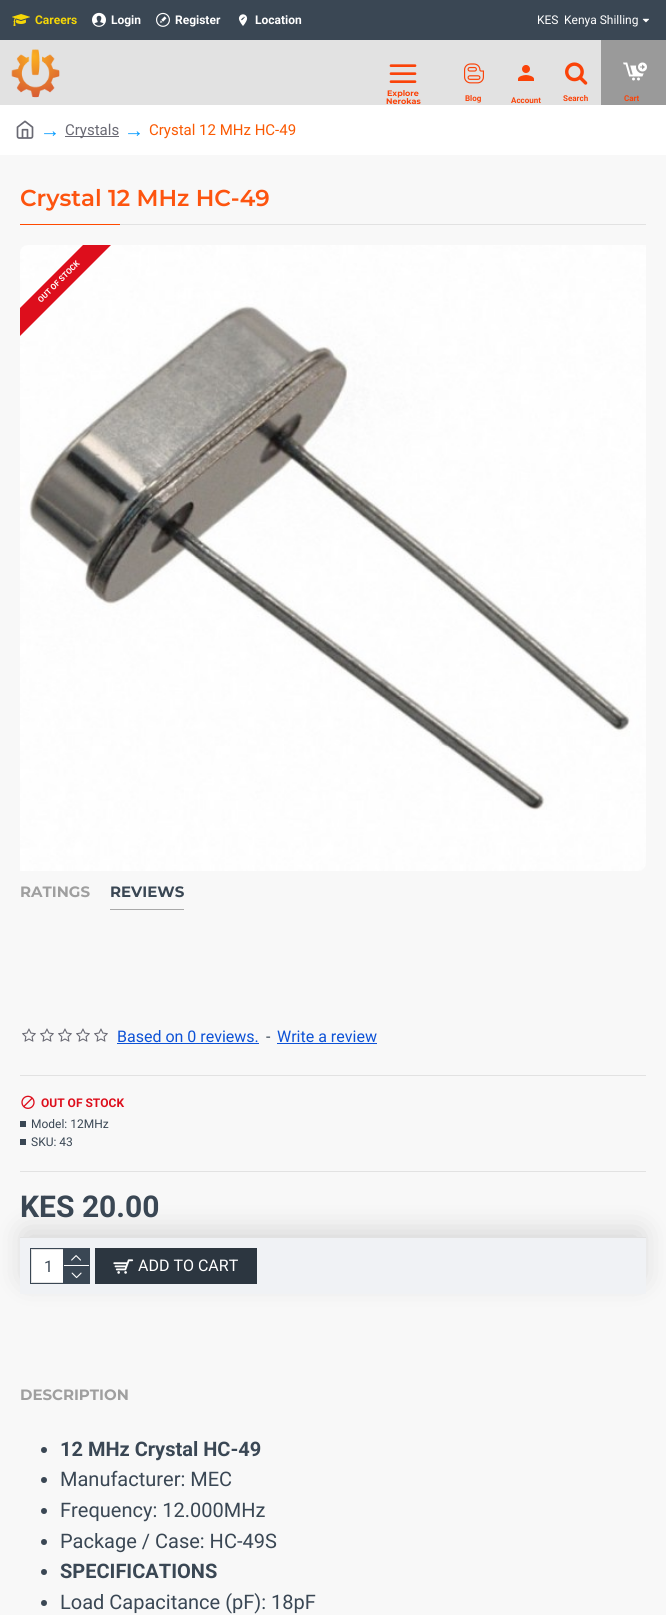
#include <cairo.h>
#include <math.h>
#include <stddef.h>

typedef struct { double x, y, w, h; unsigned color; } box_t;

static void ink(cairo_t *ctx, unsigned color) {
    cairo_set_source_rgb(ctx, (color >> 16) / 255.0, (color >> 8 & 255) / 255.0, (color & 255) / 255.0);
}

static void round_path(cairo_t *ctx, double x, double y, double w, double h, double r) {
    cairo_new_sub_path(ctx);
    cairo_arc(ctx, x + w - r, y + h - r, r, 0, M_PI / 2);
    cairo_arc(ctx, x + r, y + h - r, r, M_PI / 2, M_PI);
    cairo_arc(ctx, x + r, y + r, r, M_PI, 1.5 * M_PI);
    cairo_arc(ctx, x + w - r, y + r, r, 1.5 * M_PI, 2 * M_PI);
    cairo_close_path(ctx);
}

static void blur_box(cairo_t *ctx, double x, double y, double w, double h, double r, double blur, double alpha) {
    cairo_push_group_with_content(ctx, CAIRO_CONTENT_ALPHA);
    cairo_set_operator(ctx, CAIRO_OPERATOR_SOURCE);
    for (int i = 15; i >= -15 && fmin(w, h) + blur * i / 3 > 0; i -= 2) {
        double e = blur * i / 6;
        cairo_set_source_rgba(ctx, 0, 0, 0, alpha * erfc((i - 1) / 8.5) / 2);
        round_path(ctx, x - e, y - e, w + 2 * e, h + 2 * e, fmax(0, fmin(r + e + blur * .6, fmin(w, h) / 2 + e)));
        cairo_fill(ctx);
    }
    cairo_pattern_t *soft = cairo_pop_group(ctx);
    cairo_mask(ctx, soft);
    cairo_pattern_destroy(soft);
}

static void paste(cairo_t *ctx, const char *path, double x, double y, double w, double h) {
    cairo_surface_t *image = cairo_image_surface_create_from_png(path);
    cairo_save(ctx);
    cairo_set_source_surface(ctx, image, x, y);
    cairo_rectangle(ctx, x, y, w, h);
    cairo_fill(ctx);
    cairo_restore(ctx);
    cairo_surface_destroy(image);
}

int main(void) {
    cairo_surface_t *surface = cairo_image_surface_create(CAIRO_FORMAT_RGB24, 666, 1615);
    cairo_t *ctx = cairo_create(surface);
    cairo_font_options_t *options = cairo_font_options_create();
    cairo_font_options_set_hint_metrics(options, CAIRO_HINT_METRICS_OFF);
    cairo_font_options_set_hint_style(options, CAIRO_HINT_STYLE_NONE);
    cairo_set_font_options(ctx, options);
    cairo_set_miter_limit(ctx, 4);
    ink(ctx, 0xF8F8F8);
    cairo_paint(ctx);
    ink(ctx, 0x3A4754);
    cairo_rectangle(ctx, 0, 0, 666, 40);
    cairo_fill(ctx);
    paste(ctx, "media/1.png", 12, 14, 18, 12);
    cairo_select_font_face(ctx, "Roboto", CAIRO_FONT_SLANT_NORMAL, CAIRO_FONT_WEIGHT_BOLD);
    cairo_set_font_size(ctx, 12);
    ink(ctx, 0xF5D606);
    cairo_move_to(ctx, 35, 24);
    cairo_show_text(ctx, "Careers");
    paste(ctx, "media/2.png", 92, 12, 14, 15);
    ink(ctx, 0xFFFFFF);
    cairo_move_to(ctx, 111, 24);
    cairo_show_text(ctx, "Login");
    paste(ctx, "media/3.png", 156, 12, 14, 15);
    cairo_move_to(ctx, 175, 24);
    cairo_show_text(ctx, "Register");
    paste(ctx, "media/4.png", 238, 14, 10, 12);
    cairo_move_to(ctx, 255, 24);
    cairo_show_text(ctx, "Location");
    cairo_select_font_face(ctx, "Roboto", CAIRO_FONT_SLANT_NORMAL, CAIRO_FONT_WEIGHT_NORMAL);
    cairo_move_to(ctx, 537, 24);
    cairo_show_text(ctx, "KES");
    cairo_move_to(ctx, 564, 24);
    cairo_show_text(ctx, "Kenya Shilling");
    paste(ctx, "media/5.png", 642, 18, 7, 5);
    ink(ctx, 0xE2E2E2);
    cairo_rectangle(ctx, 0, 40, 601, 65);
    cairo_fill(ctx);
    paste(ctx, "media/6.png", 11, 49, 49, 49);
    paste(ctx, "media/7.png", 389, 64, 28, 19);
    cairo_select_font_face(ctx, "Montserrat", CAIRO_FONT_SLANT_NORMAL, CAIRO_FONT_WEIGHT_BOLD);
    cairo_set_font_size(ctx, 8);
    ink(ctx, 0xFA4309);
    cairo_move_to(ctx, 387, 96);
    cairo_show_text(ctx, "Explore");
    cairo_move_to(ctx, 386, 104);
    cairo_show_text(ctx, "Nerokas");
    paste(ctx, "media/8.png", 464, 63, 20, 21);
    cairo_select_font_face(ctx, "Roboto", CAIRO_FONT_SLANT_NORMAL, CAIRO_FONT_WEIGHT_BOLD);
    cairo_move_to(ctx, 465, 101);
    cairo_show_text(ctx, "Blog");
    paste(ctx, "media/9.png", 518, 65, 16, 16);
    cairo_move_to(ctx, 511, 103);
    cairo_show_text(ctx, "Account");
    paste(ctx, "media/10.png", 565, 62, 23, 23);
    cairo_move_to(ctx, 563, 101);
    cairo_show_text(ctx, "Search");
    ink(ctx, 0x9A9A9A);
    cairo_rectangle(ctx, 601, 40, 65, 65);
    cairo_fill(ctx);
    paste(ctx, "media/11.png", 623, 62, 24, 19);
    ink(ctx, 0xFA4309);
    cairo_move_to(ctx, 624, 101);
    cairo_show_text(ctx, "Cart");
    ink(ctx, 0xFFFFFF);
    cairo_rectangle(ctx, 0, 105, 666, 50);
    cairo_fill(ctx);
    paste(ctx, "media/12.png", 16, 120, 18, 19);
    cairo_select_font_face(ctx, "Liberation Serif", CAIRO_FONT_SLANT_NORMAL, CAIRO_FONT_WEIGHT_NORMAL);
    cairo_set_font_size(ctx, 20);
    ink(ctx, 0x039AFF);
    cairo_move_to(ctx, 40, 137);
    cairo_show_text(ctx, "→");
    ink(ctx, 0x696973);
    cairo_rectangle(ctx, 65, 136, 54, 1);
    cairo_fill(ctx);
    cairo_select_font_face(ctx, "Roboto", CAIRO_FONT_SLANT_NORMAL, CAIRO_FONT_WEIGHT_NORMAL);
    cairo_set_font_size(ctx, 15);
    cairo_move_to(ctx, 65, 135);
    cairo_show_text(ctx, "Crystals");
    cairo_select_font_face(ctx, "Liberation Serif", CAIRO_FONT_SLANT_NORMAL, CAIRO_FONT_WEIGHT_NORMAL);
    cairo_set_font_size(ctx, 20);
    ink(ctx, 0x039AFF);
    cairo_move_to(ctx, 124, 137);
    cairo_show_text(ctx, "→");
    cairo_select_font_face(ctx, "Roboto", CAIRO_FONT_SLANT_NORMAL, CAIRO_FONT_WEIGHT_NORMAL);
    cairo_set_font_size(ctx, 15);
    ink(ctx, 0xFA5902);
    cairo_move_to(ctx, 149, 135);
    cairo_show_text(ctx, "Crystal 12 MHz HC-49");
    ink(ctx, 0xE2E2E2);
    cairo_rectangle(ctx, 120, 224, 526, 1);
    cairo_fill(ctx);
    cairo_select_font_face(ctx, "Montserrat SemiBold", CAIRO_FONT_SLANT_NORMAL, CAIRO_FONT_WEIGHT_NORMAL);
    cairo_set_font_size(ctx, 23);
    ink(ctx, 0xFD540F);
    cairo_move_to(ctx, 20, 206);
    cairo_show_text(ctx, "Crystal 12 MHz HC-49");
    ink(ctx, 0xFF4A00);
    cairo_rectangle(ctx, 20, 224, 100, 1);
    cairo_fill(ctx);
    paste(ctx, "media/13.png", 20, 245, 626, 626);
    ink(ctx, 0xDD0E1C);
    cairo_new_path(ctx);
    cairo_move_to(ctx, 111, 245);
    cairo_line_to(ctx, 20, 336);
    cairo_line_to(ctx, 20, 308);
    cairo_line_to(ctx, 83, 245);
    cairo_close_path(ctx);
    cairo_fill(ctx);
    cairo_select_font_face(ctx, "Roboto", CAIRO_FONT_SLANT_NORMAL, CAIRO_FONT_WEIGHT_BOLD);
    cairo_set_font_size(ctx, 8);
    ink(ctx, 0xFFFFFF);
    cairo_save(ctx);
    cairo_translate(ctx, 41, 303);
    cairo_rotate(ctx, -45 * M_PI / 180);
    cairo_move_to(ctx, 0, 0);
    cairo_show_text(ctx, "OUT OF STOCK");
    cairo_restore(ctx);
    cairo_select_font_face(ctx, "Montserrat", CAIRO_FONT_SLANT_NORMAL, CAIRO_FONT_WEIGHT_BOLD);
    cairo_set_font_size(ctx, 15);
    ink(ctx, 0x9F9F9F);
    cairo_move_to(ctx, 20, 897);
    cairo_show_text(ctx, "RATINGS");
    ink(ctx, 0xA9A9A9);
    cairo_rectangle(ctx, 110, 909, 74, 1);
    cairo_fill(ctx);
    ink(ctx, 0x3A4754);
    cairo_move_to(ctx, 110, 897);
    cairo_show_text(ctx, "REVIEWS");
    ink(ctx, 0xE2E2E2);
    cairo_rectangle(ctx, 20, 1075, 626, 1);
    cairo_fill(ctx);
    paste(ctx, "media/14.png", 22, 1028, 14, 14);
    paste(ctx, "media/14.png", 40, 1028, 14, 14);
    paste(ctx, "media/14.png", 58, 1028, 14, 14);
    paste(ctx, "media/14.png", 76, 1028, 14, 14);
    paste(ctx, "media/14.png", 94, 1028, 14, 14);
    cairo_select_font_face(ctx, "Roboto", CAIRO_FONT_SLANT_NORMAL, CAIRO_FONT_WEIGHT_NORMAL);
    cairo_set_font_size(ctx, 16);
    ink(ctx, 0x0D52D6);
    cairo_move_to(ctx, 117, 1042);
    cairo_show_text(ctx, "Based on 0 reviews.");
    cairo_rectangle(ctx, 117, 1043, 142, 1);
    cairo_fill(ctx);
    ink(ctx, 0x3A4754);
    cairo_move_to(ctx, 266, 1042);
    cairo_show_text(ctx, "-");
    ink(ctx, 0x0D52D6);
    cairo_move_to(ctx, 277, 1042);
    cairo_show_text(ctx, "Write a review");
    cairo_rectangle(ctx, 277, 1043, 100, 1);
    cairo_fill(ctx);
    ink(ctx, 0xE2E2E2);
    cairo_rectangle(ctx, 20, 1171, 626, 1);
    cairo_fill(ctx);
    paste(ctx, "media/15.png", 21, 1095, 14, 14);
    cairo_select_font_face(ctx, "Roboto", CAIRO_FONT_SLANT_NORMAL, CAIRO_FONT_WEIGHT_BOLD);
    cairo_set_font_size(ctx, 12);
    ink(ctx, 0xDD0E1C);
    cairo_move_to(ctx, 41, 1107);
    cairo_show_text(ctx, "OUT OF STOCK");
    ink(ctx, 0x3A4754);
    cairo_rectangle(ctx, 20, 1121, 6, 6);
    cairo_fill(ctx);
    cairo_select_font_face(ctx, "Roboto", CAIRO_FONT_SLANT_NORMAL, CAIRO_FONT_WEIGHT_NORMAL);
    cairo_move_to(ctx, 31, 1128);
    cairo_show_text(ctx, "Model: 12MHz");
    cairo_rectangle(ctx, 20, 1139, 6, 6);
    cairo_fill(ctx);
    cairo_move_to(ctx, 31, 1146);
    cairo_show_text(ctx, "SKU: 43");
    ink(ctx, 0x000000);
    blur_box(ctx, 25, 1232, 616, 47, 0, 15, 0.15);
    cairo_select_font_face(ctx, "Roboto", CAIRO_FONT_SLANT_NORMAL, CAIRO_FONT_WEIGHT_BOLD);
    cairo_set_font_size(ctx, 30);
    ink(ctx, 0x3A4754);
    cairo_move_to(ctx, 20, 1217);
    cairo_show_text(ctx, "KES 20.00");
    ink(ctx, 0xF0F2F5);
    cairo_rectangle(ctx, 20, 1238, 626, 56);
    cairo_fill(ctx);
    ink(ctx, 0xE2E2E2);
    cairo_rectangle(ctx, 20, 1237, 626, 1);
    cairo_fill(ctx);
    cairo_rectangle(ctx, 30.5, 1248.5, 59, 35);
    ink(ctx, 0x3A4754);
    cairo_set_line_width(ctx, 1);
    cairo_stroke(ctx);
    ink(ctx, 0xFFFFFF);
    cairo_rectangle(ctx, 32, 1250, 31, 32);
    cairo_fill(ctx);
    cairo_rectangle(ctx, 31.5, 1249.5, 57, 33);
    ink(ctx, 0xE2E2E2);
    cairo_stroke(ctx);
    cairo_select_font_face(ctx, "Roboto", CAIRO_FONT_SLANT_NORMAL, CAIRO_FONT_WEIGHT_NORMAL);
    cairo_set_font_size(ctx, 16);
    ink(ctx, 0x3A4754);
    cairo_move_to(ctx, 44, 1272);
    cairo_show_text(ctx, "1");
    {
        static const box_t items[] = {
            {63, 1249, 1, 34, 0x3A4754},
            {64, 1249, 25, 16, 0x3A4754},
            {64, 1265, 25, 1, 0xFFFFFF},
        };
        for (size_t i = 0; i < sizeof items / sizeof *items; i++) {
            ink(ctx, items[i].color);
            cairo_rectangle(ctx, items[i].x, items[i].y, items[i].w, items[i].h);
            cairo_fill(ctx);
        }
    }
    paste(ctx, "media/16.png", 71, 1255, 10, 6);
    ink(ctx, 0x3A4754);
    cairo_rectangle(ctx, 64, 1266, 25, 17);
    cairo_fill(ctx);
    paste(ctx, "media/17.png", 71, 1272, 11, 7);
    ink(ctx, 0x2C3640);
    cairo_rectangle(ctx, 95, 1248, 162, 36);
    cairo_fill(ctx);
    paste(ctx, "media/18.png", 113, 1259, 21, 15);
    ink(ctx, 0xFFFFFF);
    cairo_move_to(ctx, 138, 1271);
    cairo_show_text(ctx, "ADD TO CART");
    cairo_select_font_face(ctx, "Montserrat", CAIRO_FONT_SLANT_NORMAL, CAIRO_FONT_WEIGHT_BOLD);
    cairo_set_font_size(ctx, 15);
    ink(ctx, 0x9F9F9F);
    cairo_move_to(ctx, 20, 1400);
    cairo_show_text(ctx, "DESCRIPTION");
    ink(ctx, 0x3A4754);
    cairo_new_path(ctx);
    cairo_arc(ctx, 44, 1450, 3, 0, 2 * M_PI);
    cairo_fill(ctx);
    cairo_select_font_face(ctx, "Roboto", CAIRO_FONT_SLANT_NORMAL, CAIRO_FONT_WEIGHT_BOLD);
    cairo_set_font_size(ctx, 20);
    cairo_move_to(ctx, 60, 1456);
    cairo_show_text(ctx, "12 MHz Crystal HC-49");
    cairo_new_path(ctx);
    cairo_arc(ctx, 44, 1480, 3, 0, 2 * M_PI);
    cairo_fill(ctx);
    cairo_select_font_face(ctx, "Roboto", CAIRO_FONT_SLANT_NORMAL, CAIRO_FONT_WEIGHT_NORMAL);
    cairo_move_to(ctx, 60, 1486);
    cairo_show_text(ctx, "Manufacturer: MEC");
    cairo_new_path(ctx);
    cairo_arc(ctx, 44, 1511, 3, 0, 2 * M_PI);
    cairo_fill(ctx);
    cairo_move_to(ctx, 60, 1517);
    cairo_show_text(ctx, "Frequency: 12.000MHz");
    cairo_new_path(ctx);
    cairo_arc(ctx, 44, 1542, 3, 0, 2 * M_PI);
    cairo_fill(ctx);
    cairo_move_to(ctx, 60, 1548);
    cairo_show_text(ctx, "Package / Case: HC-49S");
    cairo_new_path(ctx);
    cairo_arc(ctx, 44, 1572, 3, 0, 2 * M_PI);
    cairo_fill(ctx);
    cairo_select_font_face(ctx, "Roboto", CAIRO_FONT_SLANT_NORMAL, CAIRO_FONT_WEIGHT_BOLD);
    cairo_move_to(ctx, 60, 1578);
    cairo_show_text(ctx, "SPECIFICATIONS");
    cairo_new_path(ctx);
    cairo_arc(ctx, 44, 1603, 3, 0, 2 * M_PI);
    cairo_fill(ctx);
    cairo_select_font_face(ctx, "Roboto", CAIRO_FONT_SLANT_NORMAL, CAIRO_FONT_WEIGHT_NORMAL);
    cairo_move_to(ctx, 60, 1609);
    cairo_show_text(ctx, "Load Capacitance (pF): 18pF");
    cairo_surface_write_to_png(surface, "image.png");
    cairo_font_options_destroy(options);
    cairo_destroy(ctx);
    cairo_surface_destroy(surface);
    return 0;
}
